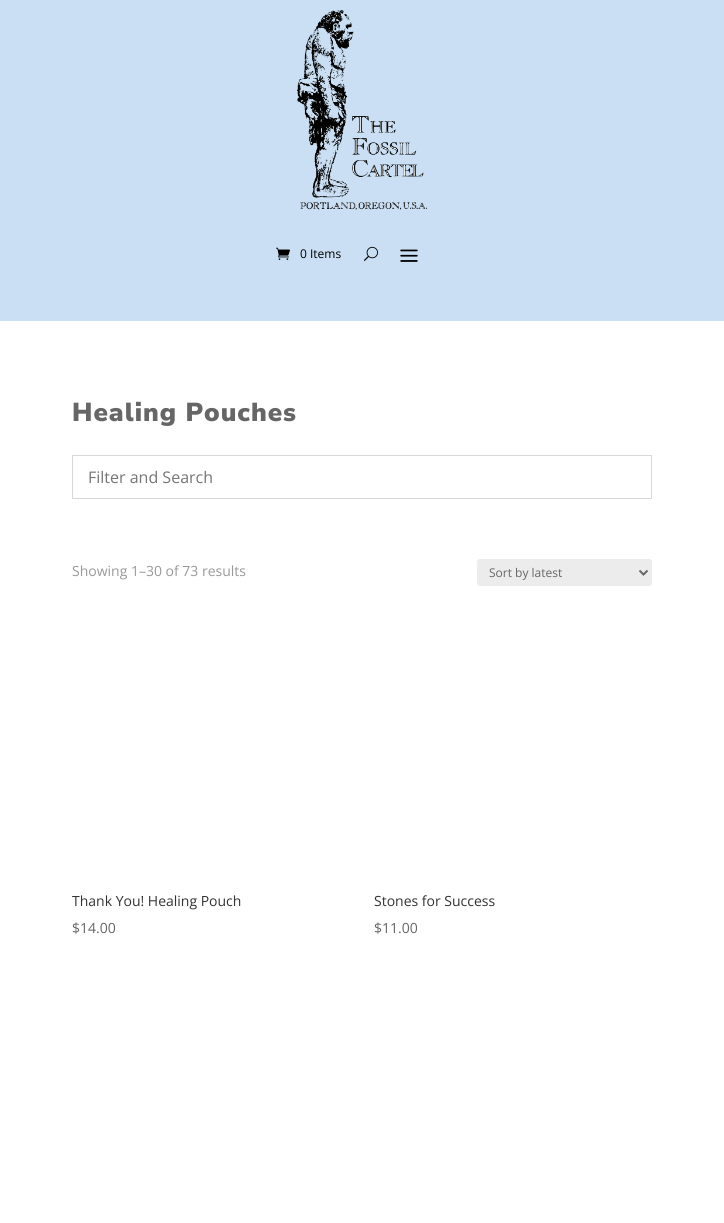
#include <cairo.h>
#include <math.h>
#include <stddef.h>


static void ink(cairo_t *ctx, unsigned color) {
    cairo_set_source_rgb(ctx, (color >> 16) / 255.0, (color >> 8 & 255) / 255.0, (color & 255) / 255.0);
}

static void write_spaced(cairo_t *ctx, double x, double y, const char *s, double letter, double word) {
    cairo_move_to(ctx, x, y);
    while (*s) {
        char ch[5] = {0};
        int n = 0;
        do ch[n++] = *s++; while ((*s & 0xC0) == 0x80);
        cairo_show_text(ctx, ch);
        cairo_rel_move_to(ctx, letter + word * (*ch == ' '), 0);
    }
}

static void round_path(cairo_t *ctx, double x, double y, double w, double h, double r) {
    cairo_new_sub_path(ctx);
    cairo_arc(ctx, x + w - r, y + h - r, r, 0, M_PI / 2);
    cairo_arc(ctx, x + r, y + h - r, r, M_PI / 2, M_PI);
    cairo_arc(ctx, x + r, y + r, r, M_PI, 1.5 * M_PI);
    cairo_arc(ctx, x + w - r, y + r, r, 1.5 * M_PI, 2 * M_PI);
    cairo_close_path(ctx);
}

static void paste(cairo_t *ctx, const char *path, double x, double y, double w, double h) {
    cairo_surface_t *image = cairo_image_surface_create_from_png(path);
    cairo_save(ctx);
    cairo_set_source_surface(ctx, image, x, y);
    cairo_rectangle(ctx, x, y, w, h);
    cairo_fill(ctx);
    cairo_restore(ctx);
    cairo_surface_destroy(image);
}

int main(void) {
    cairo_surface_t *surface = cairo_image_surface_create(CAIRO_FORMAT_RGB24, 724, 1223);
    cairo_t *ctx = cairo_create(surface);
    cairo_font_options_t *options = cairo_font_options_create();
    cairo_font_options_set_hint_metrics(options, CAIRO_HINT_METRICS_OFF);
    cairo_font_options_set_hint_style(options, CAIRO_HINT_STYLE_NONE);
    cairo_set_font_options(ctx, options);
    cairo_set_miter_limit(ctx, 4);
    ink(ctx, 0xFFFFFF);
    cairo_paint(ctx);
    ink(ctx, 0xCADFF3);
    cairo_rectangle(ctx, 0, 0, 724, 321);
    cairo_fill(ctx);
    paste(ctx, "media/1.png", 297, 10, 130, 200);
    paste(ctx, "media/2.png", 276, 247, 14, 13);
    cairo_select_font_face(ctx, "Open Sans", CAIRO_FONT_SLANT_NORMAL, CAIRO_FONT_WEIGHT_NORMAL);
    cairo_set_font_size(ctx, 12);
    ink(ctx, 0x000000);
    cairo_move_to(ctx, 300, 258);
    cairo_show_text(ctx, "0 Items");
    paste(ctx, "media/3.png", 364, 246, 14, 15);
    paste(ctx, "media/4.png", 400, 249, 18, 13);
    cairo_select_font_face(ctx, "Nunito Sans Black", CAIRO_FONT_SLANT_NORMAL, CAIRO_FONT_WEIGHT_NORMAL);
    cairo_set_font_size(ctx, 26);
    ink(ctx, 0x666666);
    write_spaced(ctx, 72, 421, "Healing Pouches", 1, 0);
    cairo_rectangle(ctx, 72.5, 455.5, 579, 43);
    ink(ctx, 0xD8D8D8);
    cairo_set_line_width(ctx, 1);
    cairo_stroke(ctx);
    cairo_select_font_face(ctx, "Open Sans", CAIRO_FONT_SLANT_NORMAL, CAIRO_FONT_WEIGHT_NORMAL);
    cairo_set_font_size(ctx, 16);
    ink(ctx, 0x757575);
    cairo_move_to(ctx, 88, 483);
    cairo_show_text(ctx, "Filter and Search");
    cairo_set_font_size(ctx, 14);
    ink(ctx, 0x999999);
    cairo_move_to(ctx, 72, 576);
    cairo_show_text(ctx, "Showing 1–30 of 73 results");
    ink(ctx, 0xECECEC);
    round_path(ctx, 477, 559, 175, 27, 3);
    cairo_fill(ctx);
    cairo_new_path(ctx);
    cairo_move_to(ctx, 639.5, 570.5);
    cairo_line_to(ctx, 643.5, 574.5);
    cairo_line_to(ctx, 647.5, 570.5);
    ink(ctx, 0x666666);
    cairo_set_line_width(ctx, 2);
    cairo_stroke(ctx);
    cairo_set_font_size(ctx, 12);
    cairo_move_to(ctx, 489, 577);
    cairo_show_text(ctx, "Sort by latest");
    cairo_set_font_size(ctx, 14);
    ink(ctx, 0x333333);
    cairo_move_to(ctx, 72, 906);
    cairo_show_text(ctx, "Thank You! Healing Pouch");
    ink(ctx, 0x666666);
    cairo_move_to(ctx, 72, 933);
    cairo_show_text(ctx, "$14.00");
    ink(ctx, 0x333333);
    cairo_move_to(ctx, 374, 906);
    cairo_show_text(ctx, "Stones for Success");
    ink(ctx, 0x666666);
    cairo_move_to(ctx, 374, 933);
    cairo_show_text(ctx, "$11.00");
    cairo_surface_write_to_png(surface, "image.png");
    cairo_font_options_destroy(options);
    cairo_destroy(ctx);
    cairo_surface_destroy(surface);
    return 0;
}
